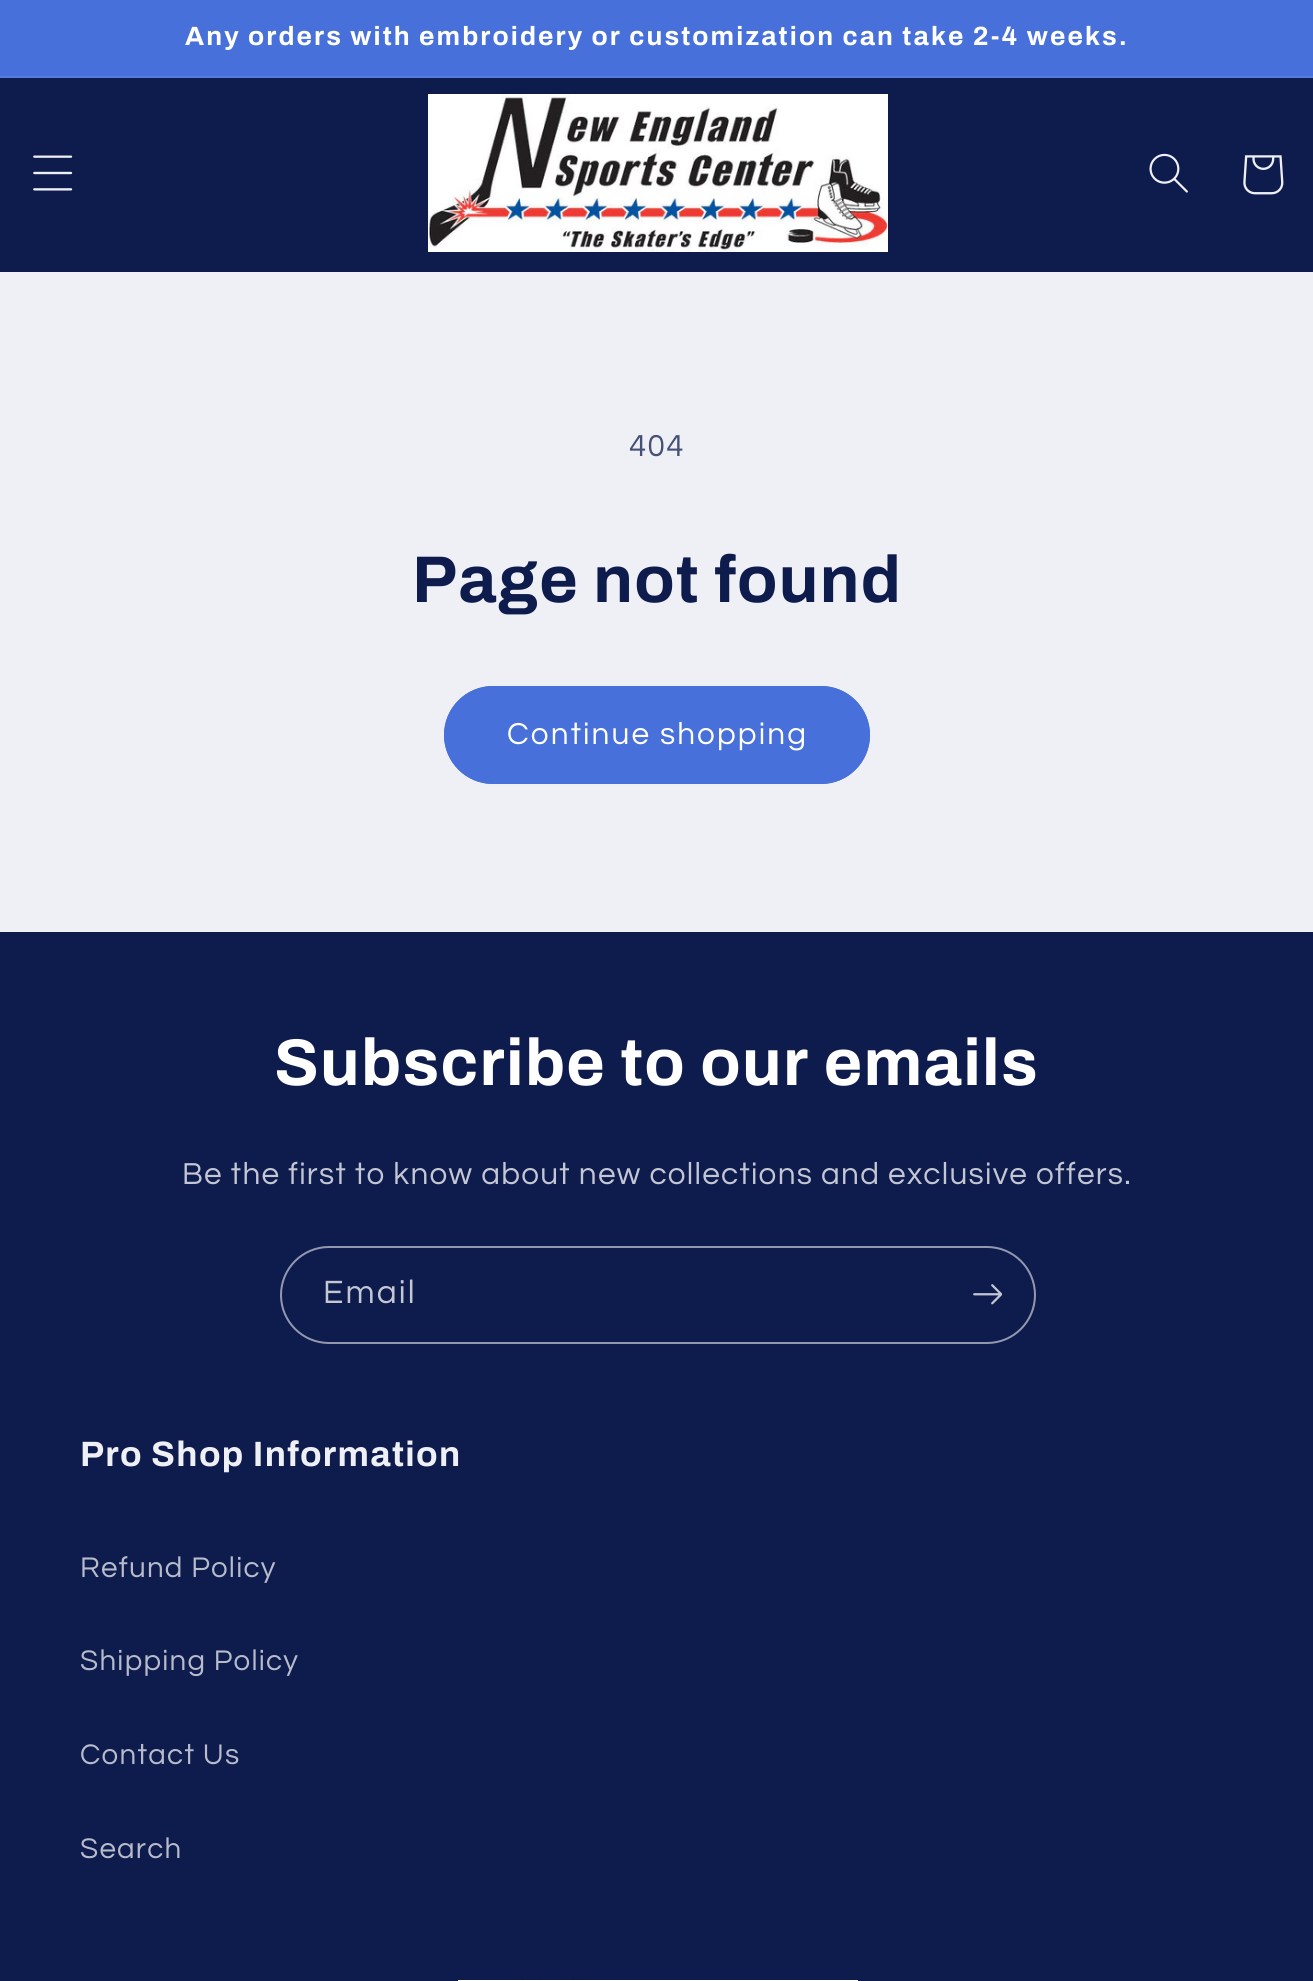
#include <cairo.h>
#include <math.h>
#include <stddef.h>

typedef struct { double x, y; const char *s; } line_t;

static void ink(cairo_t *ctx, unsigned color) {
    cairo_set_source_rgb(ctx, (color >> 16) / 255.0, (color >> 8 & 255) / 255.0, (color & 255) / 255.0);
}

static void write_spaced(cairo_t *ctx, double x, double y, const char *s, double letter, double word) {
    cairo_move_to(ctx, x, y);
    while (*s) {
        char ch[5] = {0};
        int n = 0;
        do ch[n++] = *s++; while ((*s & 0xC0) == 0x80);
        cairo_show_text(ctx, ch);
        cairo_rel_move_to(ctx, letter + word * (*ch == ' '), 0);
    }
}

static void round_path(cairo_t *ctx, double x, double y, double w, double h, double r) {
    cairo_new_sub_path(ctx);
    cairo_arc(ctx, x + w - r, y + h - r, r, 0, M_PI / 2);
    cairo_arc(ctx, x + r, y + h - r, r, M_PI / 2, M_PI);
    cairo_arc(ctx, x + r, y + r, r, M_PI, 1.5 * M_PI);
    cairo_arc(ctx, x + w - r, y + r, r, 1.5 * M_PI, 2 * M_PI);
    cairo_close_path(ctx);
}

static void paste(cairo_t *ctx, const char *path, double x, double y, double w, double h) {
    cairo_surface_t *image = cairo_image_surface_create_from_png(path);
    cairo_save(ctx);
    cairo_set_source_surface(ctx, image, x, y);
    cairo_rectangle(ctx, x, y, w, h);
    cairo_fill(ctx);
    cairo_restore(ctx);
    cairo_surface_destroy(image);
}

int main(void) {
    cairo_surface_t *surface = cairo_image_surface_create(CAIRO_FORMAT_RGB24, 1313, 1981);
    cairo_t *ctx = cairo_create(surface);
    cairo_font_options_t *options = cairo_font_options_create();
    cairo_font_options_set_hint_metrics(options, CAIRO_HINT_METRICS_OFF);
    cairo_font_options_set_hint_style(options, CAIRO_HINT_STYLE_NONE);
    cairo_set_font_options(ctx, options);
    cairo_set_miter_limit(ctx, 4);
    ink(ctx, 0xEFF0F5);
    cairo_paint(ctx);
    ink(ctx, 0x4770DB);
    cairo_rectangle(ctx, 0, 0, 1313, 76);
    cairo_fill(ctx);
    ink(ctx, 0x567BDE);
    cairo_rectangle(ctx, 0, 76, 1313, 2);
    cairo_fill(ctx);
    cairo_select_font_face(ctx, "Archivo", CAIRO_FONT_SLANT_NORMAL, CAIRO_FONT_WEIGHT_BOLD);
    cairo_set_font_size(ctx, 26.4);
    ink(ctx, 0xFFFFFF);
    write_spaced(ctx, 185, 45, "Any orders with embroidery or customization can take 2-4 weeks.", 2.1, 0);
    ink(ctx, 0x0E1B4D);
    cairo_rectangle(ctx, 0, 78, 1313, 194);
    cairo_fill(ctx);
    paste(ctx, "media/1.png", 33, 155, 40, 36);
    paste(ctx, "media/2.png", 428, 94, 460, 158);
    paste(ctx, "media/3.png", 1149, 153, 39, 40);
    paste(ctx, "media/4.png", 1243, 155, 41, 40);
    cairo_select_font_face(ctx, "Questrial", CAIRO_FONT_SLANT_NORMAL, CAIRO_FONT_WEIGHT_NORMAL);
    cairo_set_font_size(ctx, 31.5);
    ink(ctx, 0x465077);
    write_spaced(ctx, 629, 456, "404", 1.25, 0);
    cairo_select_font_face(ctx, "Archivo", CAIRO_FONT_SLANT_NORMAL, CAIRO_FONT_WEIGHT_BOLD);
    cairo_set_font_size(ctx, 66);
    ink(ctx, 0x0E1B4D);
    write_spaced(ctx, 412, 602, "Page not found", 1.3, 0);
    ink(ctx, 0x4770DB);
    round_path(ctx, 444, 686, 426, 98, 49);
    cairo_fill(ctx);
    round_path(ctx, 445, 687, 424, 96, 48);
    cairo_stroke(ctx);
    cairo_select_font_face(ctx, "Questrial", CAIRO_FONT_SLANT_NORMAL, CAIRO_FONT_WEIGHT_NORMAL);
    cairo_set_font_size(ctx, 31.5);
    ink(ctx, 0xFFFFFF);
    write_spaced(ctx, 507, 744, "Continue shopping", 2.1, 0);
    ink(ctx, 0x0E1B4D);
    cairo_rectangle(ctx, 0, 932, 1313, 1049);
    cairo_fill(ctx);
    cairo_select_font_face(ctx, "Archivo", CAIRO_FONT_SLANT_NORMAL, CAIRO_FONT_WEIGHT_BOLD);
    cairo_set_font_size(ctx, 66);
    ink(ctx, 0xFFFFFF);
    write_spaced(ctx, 274, 1085, "Subscribe to our emails", 1.3, 0);
    cairo_select_font_face(ctx, "Questrial", CAIRO_FONT_SLANT_NORMAL, CAIRO_FONT_WEIGHT_NORMAL);
    cairo_set_font_size(ctx, 31.5);
    ink(ctx, 0xC3C6D3);
    write_spaced(ctx, 182, 1184, "Be the first to know about new collections and exclusive offers.", 1.25, 0);
    round_path(ctx, 281, 1247, 754, 96, 48);
    ink(ctx, 0x9398AF);
    cairo_stroke(ctx);
    cairo_set_font_size(ctx, 33.5);
    ink(ctx, 0xC3C6D3);
    write_spaced(ctx, 323, 1303, "Email", 2.1, 0);
    paste(ctx, "media/5.png", 973, 1284, 29, 21);
    cairo_select_font_face(ctx, "Archivo", CAIRO_FONT_SLANT_NORMAL, CAIRO_FONT_WEIGHT_BOLD);
    cairo_set_font_size(ctx, 35.25);
    ink(ctx, 0xEFF0F5);
    write_spaced(ctx, 80, 1466, "Pro Shop Information", 1.3, 0);
    cairo_select_font_face(ctx, "Questrial", CAIRO_FONT_SLANT_NORMAL, CAIRO_FONT_WEIGHT_NORMAL);
    cairo_set_font_size(ctx, 29.5);
    ink(ctx, 0xB7BBCB);
    {
        static const line_t items[] = {
            {80, 1577, "Refund Policy"},
            {80, 1670, "Shipping Policy"},
            {80, 1764, "Contact Us"},
            {80, 1858, "Search"},
        };
        for (size_t i = 0; i < sizeof items / sizeof *items; i++) {
            write_spaced(ctx, items[i].x, items[i].y, items[i].s, 1.25, 0);
        }
    }
    paste(ctx, "media/6.png", 458, 1980, 400, 1);
    cairo_surface_write_to_png(surface, "image.png");
    cairo_font_options_destroy(options);
    cairo_destroy(ctx);
    cairo_surface_destroy(surface);
    return 0;
}
